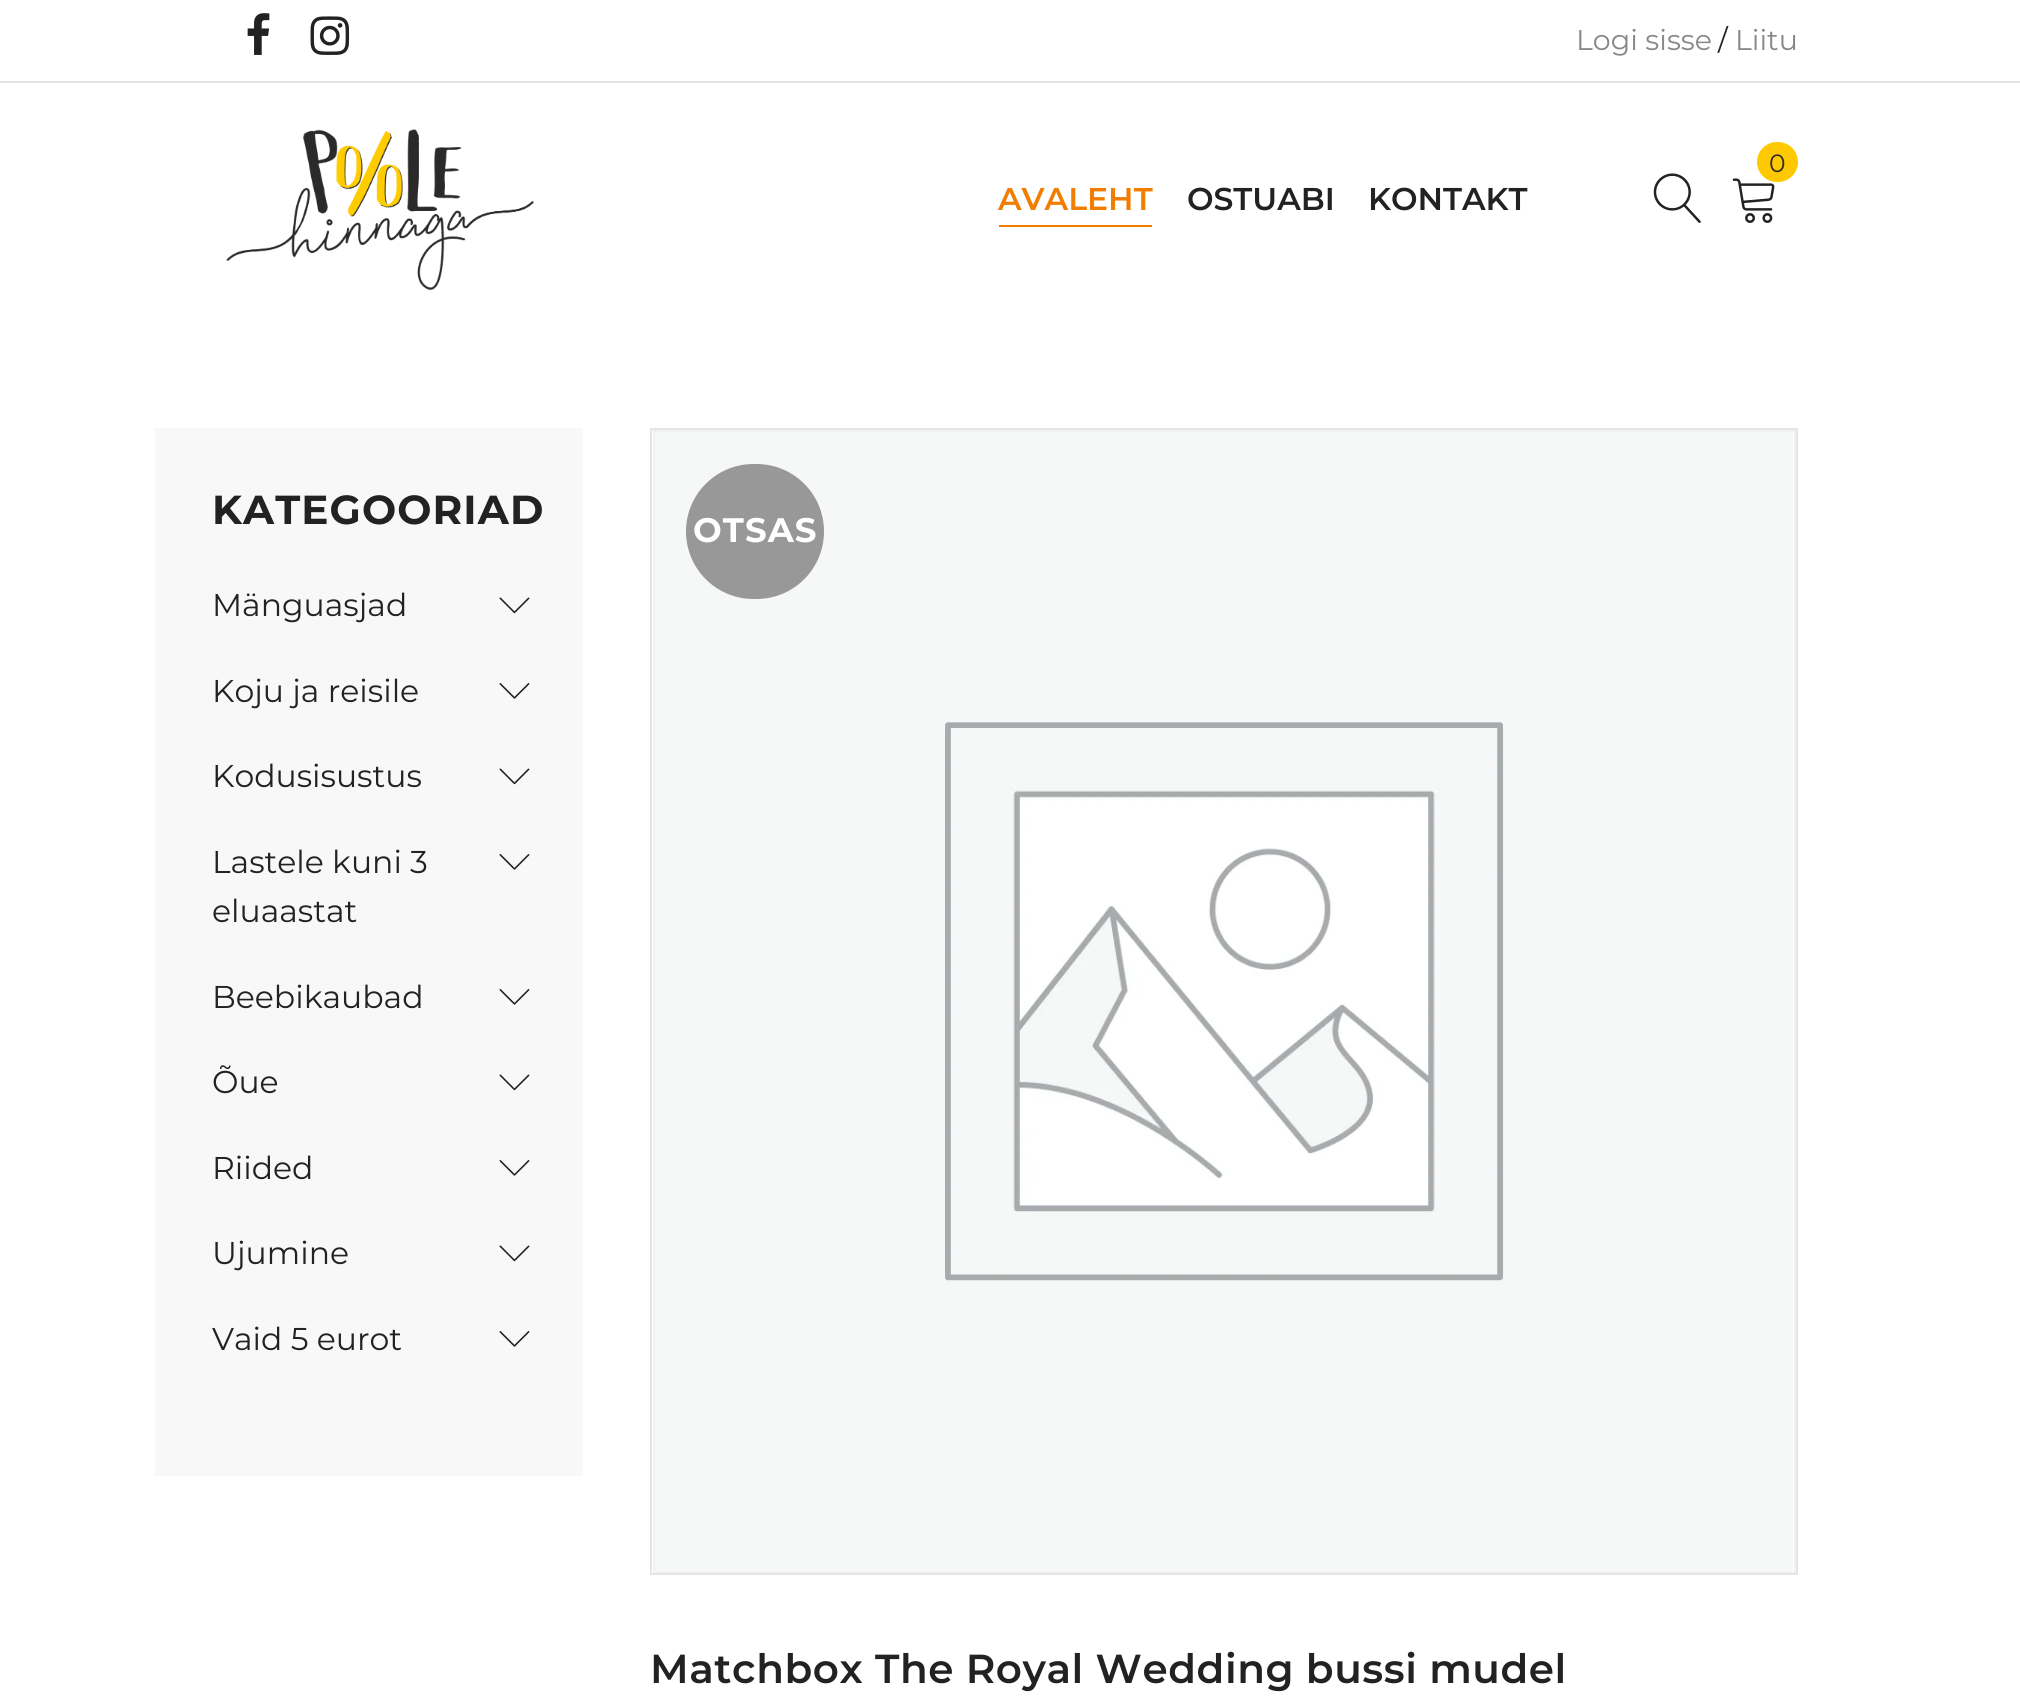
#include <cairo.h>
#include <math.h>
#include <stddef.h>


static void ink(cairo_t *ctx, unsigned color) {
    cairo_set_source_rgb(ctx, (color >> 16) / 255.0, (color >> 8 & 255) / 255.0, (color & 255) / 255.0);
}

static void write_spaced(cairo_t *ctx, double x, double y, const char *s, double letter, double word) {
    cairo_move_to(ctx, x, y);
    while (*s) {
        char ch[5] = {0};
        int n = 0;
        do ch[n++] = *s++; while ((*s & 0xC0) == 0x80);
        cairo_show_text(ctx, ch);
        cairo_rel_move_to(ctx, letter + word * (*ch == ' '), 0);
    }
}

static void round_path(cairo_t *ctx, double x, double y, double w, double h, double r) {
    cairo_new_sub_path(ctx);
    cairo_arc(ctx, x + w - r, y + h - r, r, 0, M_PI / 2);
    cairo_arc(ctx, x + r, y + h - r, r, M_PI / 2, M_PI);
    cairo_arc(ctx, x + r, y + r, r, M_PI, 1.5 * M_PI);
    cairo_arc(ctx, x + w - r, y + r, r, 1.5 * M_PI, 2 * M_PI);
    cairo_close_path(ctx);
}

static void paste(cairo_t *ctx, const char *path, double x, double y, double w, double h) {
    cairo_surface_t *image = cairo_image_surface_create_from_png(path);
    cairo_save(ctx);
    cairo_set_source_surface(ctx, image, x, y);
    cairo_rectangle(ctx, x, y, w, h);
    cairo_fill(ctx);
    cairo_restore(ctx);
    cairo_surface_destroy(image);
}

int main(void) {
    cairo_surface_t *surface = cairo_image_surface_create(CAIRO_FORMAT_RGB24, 2020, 1696);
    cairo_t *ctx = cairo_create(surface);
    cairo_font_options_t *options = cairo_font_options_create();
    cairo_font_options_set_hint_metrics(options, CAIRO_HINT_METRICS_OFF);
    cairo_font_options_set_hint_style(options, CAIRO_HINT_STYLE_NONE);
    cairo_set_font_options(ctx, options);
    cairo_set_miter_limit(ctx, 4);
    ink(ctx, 0xFFFFFF);
    cairo_paint(ctx);
    ink(ctx, 0xE5E5E5);
    cairo_rectangle(ctx, 0, 81, 2020, 2);
    cairo_fill(ctx);
    paste(ctx, "media/1.png", 247, 13, 23, 42);
    paste(ctx, "media/2.png", 310, 16, 40, 39);
    cairo_select_font_face(ctx, "Montserrat", CAIRO_FONT_SLANT_NORMAL, CAIRO_FONT_WEIGHT_NORMAL);
    cairo_set_font_size(ctx, 28.5);
    ink(ctx, 0x888888);
    cairo_move_to(ctx, 1576, 50);
    cairo_show_text(ctx, "Logi sisse");
    ink(ctx, 0x222222);
    cairo_move_to(ctx, 1718, 50);
    cairo_show_text(ctx, "/");
    ink(ctx, 0x888888);
    cairo_move_to(ctx, 1735, 50);
    cairo_show_text(ctx, "Liitu");
    paste(ctx, "media/3.png", 226, 129, 308, 162);
    paste(ctx, "media/4.png", 1732, 178, 43, 45);
    ink(ctx, 0xFFC900);
    round_path(ctx, 1757, 142, 41, 40, 20);
    cairo_fill(ctx);
    cairo_set_font_size(ctx, 25);
    ink(ctx, 0x2E2A2A);
    cairo_move_to(ctx, 1769, 172);
    cairo_show_text(ctx, "0");
    paste(ctx, "media/5.png", 1653, 173, 48, 50);
    cairo_select_font_face(ctx, "Montserrat SemiBold", CAIRO_FONT_SLANT_NORMAL, CAIRO_FONT_WEIGHT_NORMAL);
    cairo_set_font_size(ctx, 31.5);
    ink(ctx, 0xF27E01);
    cairo_move_to(ctx, 998, 210);
    cairo_show_text(ctx, "AVALEHT");
    cairo_rectangle(ctx, 999, 225, 153, 2);
    cairo_fill(ctx);
    ink(ctx, 0x222222);
    cairo_move_to(ctx, 1187, 210);
    cairo_show_text(ctx, "OSTUABI");
    cairo_move_to(ctx, 1368, 210);
    cairo_show_text(ctx, "KONTAKT");
    ink(ctx, 0xF8F8F8);
    cairo_rectangle(ctx, 155, 428, 428, 1048);
    cairo_fill(ctx);
    cairo_select_font_face(ctx, "Montserrat", CAIRO_FONT_SLANT_NORMAL, CAIRO_FONT_WEIGHT_BOLD);
    cairo_set_font_size(ctx, 40.5);
    ink(ctx, 0x222222);
    write_spaced(ctx, 212, 524, "KATEGOORIAD", 1.1, 0);
    cairo_select_font_face(ctx, "Montserrat", CAIRO_FONT_SLANT_NORMAL, CAIRO_FONT_WEIGHT_NORMAL);
    cairo_set_font_size(ctx, 31.5);
    cairo_move_to(ctx, 212, 616);
    cairo_show_text(ctx, "Mänguasjad");
    paste(ctx, "media/6.png", 499, 597, 31, 17);
    cairo_move_to(ctx, 212, 702);
    cairo_show_text(ctx, "Koju ja reisile");
    paste(ctx, "media/7.png", 499, 683, 31, 16);
    cairo_move_to(ctx, 212, 787);
    cairo_show_text(ctx, "Kodusisustus");
    paste(ctx, "media/6.png", 499, 768, 31, 17);
    cairo_move_to(ctx, 212, 873);
    cairo_show_text(ctx, "Lastele kuni 3");
    paste(ctx, "media/7.png", 499, 854, 31, 16);
    cairo_move_to(ctx, 212, 922);
    cairo_show_text(ctx, "eluaastat");
    cairo_move_to(ctx, 212, 1008);
    cairo_show_text(ctx, "Beebikaubad");
    paste(ctx, "media/7.png", 499, 989, 31, 16);
    cairo_move_to(ctx, 212, 1093);
    cairo_show_text(ctx, "Õue");
    paste(ctx, "media/6.png", 499, 1074, 31, 17);
    cairo_move_to(ctx, 212, 1179);
    cairo_show_text(ctx, "Riided");
    paste(ctx, "media/7.png", 499, 1160, 31, 16);
    cairo_move_to(ctx, 212, 1264);
    cairo_show_text(ctx, "Ujumine");
    paste(ctx, "media/6.png", 499, 1245, 31, 17);
    cairo_move_to(ctx, 212, 1350);
    cairo_show_text(ctx, "Vaid 5 eurot");
    paste(ctx, "media/7.png", 499, 1331, 31, 16);
    cairo_rectangle(ctx, 651, 429, 1146, 1145);
    ink(ctx, 0xE5E5E5);
    cairo_stroke(ctx);
    cairo_rectangle(ctx, 654, 431, 1141, 1141);
    ink(ctx, 0xF2F2F2);
    cairo_stroke(ctx);
    paste(ctx, "media/8.png", 655, 432, 1138, 1139);
    ink(ctx, 0x989898);
    round_path(ctx, 686, 464, 138, 135, 67.5);
    cairo_fill(ctx);
    cairo_select_font_face(ctx, "Montserrat", CAIRO_FONT_SLANT_NORMAL, CAIRO_FONT_WEIGHT_BOLD);
    cairo_set_font_size(ctx, 34);
    ink(ctx, 0xFFFFFF);
    write_spaced(ctx, 693, 542, "OTSAS", 1.1, 0);
    cairo_select_font_face(ctx, "Montserrat SemiBold", CAIRO_FONT_SLANT_NORMAL, CAIRO_FONT_WEIGHT_NORMAL);
    cairo_set_font_size(ctx, 40.5);
    ink(ctx, 0x222222);
    write_spaced(ctx, 650, 1683, "Matchbox The Royal Wedding bussi mudel", 0.55, 0);
    cairo_surface_write_to_png(surface, "image.png");
    cairo_font_options_destroy(options);
    cairo_destroy(ctx);
    cairo_surface_destroy(surface);
    return 0;
}
